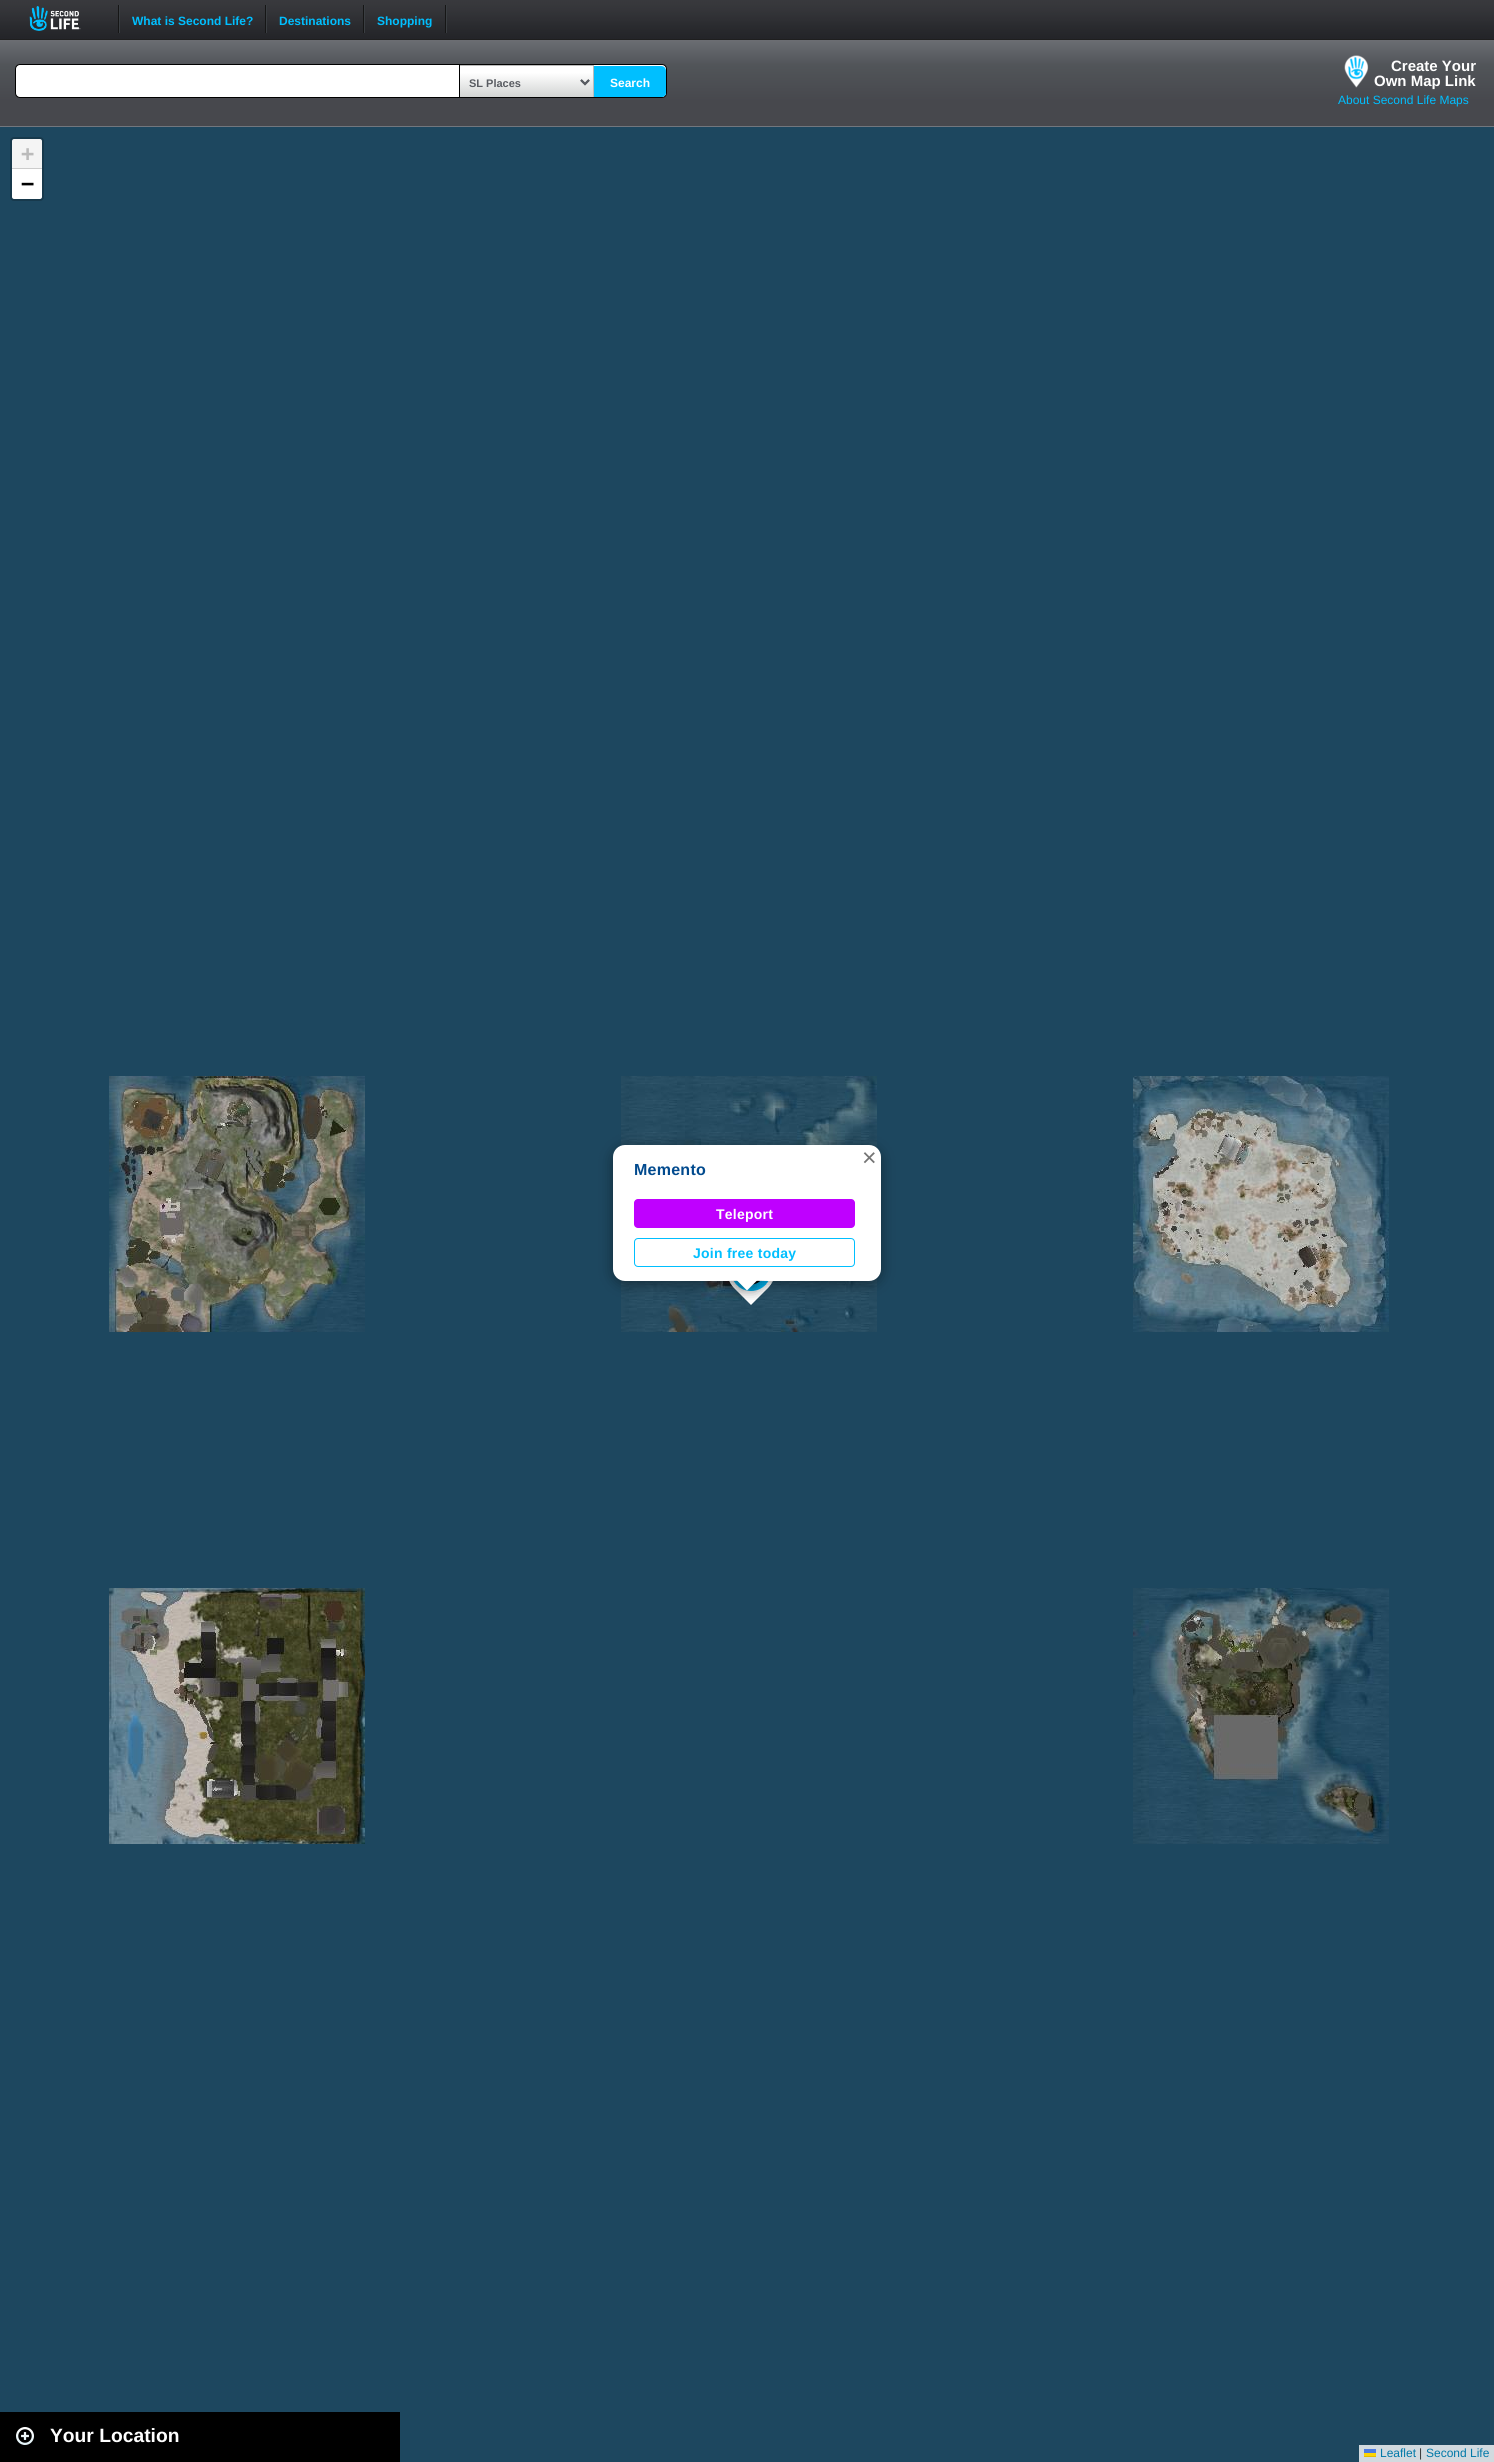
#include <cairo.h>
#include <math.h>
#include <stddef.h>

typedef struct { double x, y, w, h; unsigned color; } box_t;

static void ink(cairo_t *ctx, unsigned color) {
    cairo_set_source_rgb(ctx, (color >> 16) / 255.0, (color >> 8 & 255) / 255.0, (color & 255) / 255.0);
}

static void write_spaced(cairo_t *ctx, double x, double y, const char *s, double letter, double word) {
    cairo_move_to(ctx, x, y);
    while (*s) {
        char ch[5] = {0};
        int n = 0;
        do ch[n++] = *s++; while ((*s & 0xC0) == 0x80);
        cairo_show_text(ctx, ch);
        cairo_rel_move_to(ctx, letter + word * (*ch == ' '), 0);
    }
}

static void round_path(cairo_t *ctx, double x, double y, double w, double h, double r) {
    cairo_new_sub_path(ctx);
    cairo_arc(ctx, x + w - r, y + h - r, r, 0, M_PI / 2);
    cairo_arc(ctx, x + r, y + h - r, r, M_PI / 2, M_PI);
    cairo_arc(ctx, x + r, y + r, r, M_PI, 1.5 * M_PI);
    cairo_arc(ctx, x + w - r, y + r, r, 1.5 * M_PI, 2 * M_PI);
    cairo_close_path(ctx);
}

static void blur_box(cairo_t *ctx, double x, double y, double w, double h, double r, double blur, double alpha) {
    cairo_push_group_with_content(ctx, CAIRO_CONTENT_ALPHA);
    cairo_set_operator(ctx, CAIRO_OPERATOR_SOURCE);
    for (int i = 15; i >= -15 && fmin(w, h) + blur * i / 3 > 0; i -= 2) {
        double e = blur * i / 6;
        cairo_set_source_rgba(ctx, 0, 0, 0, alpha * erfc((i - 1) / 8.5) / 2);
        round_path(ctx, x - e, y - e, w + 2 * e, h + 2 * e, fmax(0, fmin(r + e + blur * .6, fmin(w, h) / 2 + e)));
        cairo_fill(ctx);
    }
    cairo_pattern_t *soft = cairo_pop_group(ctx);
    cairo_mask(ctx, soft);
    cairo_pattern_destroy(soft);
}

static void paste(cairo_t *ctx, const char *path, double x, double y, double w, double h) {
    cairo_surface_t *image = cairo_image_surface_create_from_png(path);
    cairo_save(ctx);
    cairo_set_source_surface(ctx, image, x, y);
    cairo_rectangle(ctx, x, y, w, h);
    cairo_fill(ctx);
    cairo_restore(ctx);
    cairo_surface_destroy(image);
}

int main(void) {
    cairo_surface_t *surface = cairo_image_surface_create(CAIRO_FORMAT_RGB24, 1494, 2462);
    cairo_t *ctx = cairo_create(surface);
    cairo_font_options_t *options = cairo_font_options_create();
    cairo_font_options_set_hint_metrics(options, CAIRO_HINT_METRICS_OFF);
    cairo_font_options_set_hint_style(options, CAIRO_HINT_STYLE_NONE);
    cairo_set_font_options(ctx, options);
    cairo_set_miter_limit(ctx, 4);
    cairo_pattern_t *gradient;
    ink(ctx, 0x1D475F);
    cairo_paint(ctx);
    paste(ctx, "media/1.png", 0, 0, 1494, 40);
    paste(ctx, "media/2.png", 29, 6, 52, 25);
    ink(ctx, 0x3A3E42);
    cairo_rectangle(ctx, 119, 5, 1, 28);
    cairo_fill(ctx);
    ink(ctx, 0x161616);
    cairo_rectangle(ctx, 118, 5, 1, 28);
    cairo_fill(ctx);
    cairo_select_font_face(ctx, "Liberation Sans", CAIRO_FONT_SLANT_NORMAL, CAIRO_FONT_WEIGHT_BOLD);
    cairo_set_font_size(ctx, 12);
    ink(ctx, 0x00BFFF);
    cairo_move_to(ctx, 132, 25);
    cairo_show_text(ctx, "What is Second Life?");
    ink(ctx, 0x3A3E42);
    cairo_rectangle(ctx, 266, 5, 1, 28);
    cairo_fill(ctx);
    ink(ctx, 0x161616);
    cairo_rectangle(ctx, 265, 5, 1, 28);
    cairo_fill(ctx);
    ink(ctx, 0x00BFFF);
    cairo_move_to(ctx, 279, 25);
    cairo_show_text(ctx, "Destinations");
    ink(ctx, 0x3A3E42);
    cairo_rectangle(ctx, 364, 5, 1, 28);
    cairo_fill(ctx);
    ink(ctx, 0x161616);
    cairo_rectangle(ctx, 363, 5, 1, 28);
    cairo_fill(ctx);
    ink(ctx, 0x00BFFF);
    cairo_move_to(ctx, 377, 25);
    cairo_show_text(ctx, "Shopping");
    ink(ctx, 0x3A3E42);
    cairo_rectangle(ctx, 446, 5, 1, 28);
    cairo_fill(ctx);
    ink(ctx, 0x161616);
    cairo_rectangle(ctx, 445, 5, 1, 28);
    cairo_fill(ctx);
    gradient = cairo_pattern_create_linear(0, 126, 0, 40);
    cairo_pattern_add_color_stop_rgba(gradient, 0.29, 0.278, 0.282, 0.302, 1);
    cairo_pattern_add_color_stop_rgba(gradient, 0.71, 0.318, 0.333, 0.349, 1);
    cairo_pattern_add_color_stop_rgba(gradient, 1, 0.42, 0.431, 0.451, 1);
    cairo_set_source(ctx, gradient);
    cairo_pattern_destroy(gradient);
    cairo_rectangle(ctx, 0, 40, 1494, 86);
    cairo_fill(ctx);
    ink(ctx, 0x72777E);
    cairo_rectangle(ctx, 0, 126, 1494, 1);
    cairo_fill(ctx);
    ink(ctx, 0xFFFFFF);
    round_path(ctx, 15.5, 64.5, 651, 33, 4.5);
    cairo_fill_preserve(ctx);
    ink(ctx, 0x000000);
    cairo_set_line_width(ctx, 1);
    cairo_stroke(ctx);
    paste(ctx, "media/3.png", 460, 66, 133, 31);
    {
        static const box_t items[] = {
            {459, 65, 135, 1, 0xBBBBBB},
            {593, 65, 1, 32, 0xBBBBBB},
            {459, 65, 1, 32, 0x000000},
        };
        for (size_t i = 0; i < sizeof items / sizeof *items; i++) {
            ink(ctx, items[i].color);
            cairo_rectangle(ctx, items[i].x, items[i].y, items[i].w, items[i].h);
            cairo_fill(ctx);
        }
    }
    cairo_new_path(ctx);
    cairo_move_to(ctx, 581, 80);
    cairo_line_to(ctx, 585, 84);
    cairo_line_to(ctx, 589, 80);
    ink(ctx, 0x595C62);
    cairo_set_line_width(ctx, 2);
    cairo_stroke(ctx);
    cairo_set_font_size(ctx, 11);
    cairo_move_to(ctx, 469, 87);
    cairo_show_text(ctx, "SL Places");
    cairo_save(ctx);
    round_path(ctx, 16, 65, 650, 32, 4);
    cairo_clip(ctx);
    ink(ctx, 0x00BFFF);
    cairo_new_path(ctx);
    cairo_move_to(ctx, 594, 66);
    cairo_line_to(ctx, 661, 66);
    cairo_curve_to(ctx, 664, 66, 666, 68, 666, 71);
    cairo_line_to(ctx, 666, 95);
    cairo_curve_to(ctx, 666, 98, 664, 100, 661, 100);
    cairo_line_to(ctx, 594, 100);
    cairo_close_path(ctx);
    cairo_fill(ctx);
    cairo_restore(ctx);
    cairo_set_font_size(ctx, 12);
    ink(ctx, 0xFFFFFF);
    cairo_move_to(ctx, 610, 87);
    cairo_show_text(ctx, "Search");
    paste(ctx, "media/4.png", 1344, 55, 25, 33);
    cairo_set_font_size(ctx, 15);
    cairo_move_to(ctx, 1391, 71);
    cairo_show_text(ctx, "Create Your");
    cairo_move_to(ctx, 1374, 86);
    cairo_show_text(ctx, "Own Map Link");
    cairo_select_font_face(ctx, "Liberation Sans", CAIRO_FONT_SLANT_NORMAL, CAIRO_FONT_WEIGHT_NORMAL);
    cairo_set_font_size(ctx, 12);
    ink(ctx, 0x00BFFF);
    cairo_move_to(ctx, 1338, 104);
    cairo_show_text(ctx, "About Second Life Maps");
    round_path(ctx, 11, 138, 32, 62, 3);
    ink(ctx, 0x17394C);
    cairo_stroke(ctx);
    ink(ctx, 0xF4F4F4);
    cairo_new_path(ctx);
    cairo_move_to(ctx, 14, 139);
    cairo_line_to(ctx, 40, 139);
    cairo_curve_to(ctx, 41, 139, 42, 140, 42, 141);
    cairo_line_to(ctx, 42, 169);
    cairo_line_to(ctx, 12, 169);
    cairo_line_to(ctx, 12, 141);
    cairo_curve_to(ctx, 12, 140, 13, 139, 14, 139);
    cairo_close_path(ctx);
    cairo_fill(ctx);
    ink(ctx, 0xCCCCCC);
    cairo_rectangle(ctx, 12, 168, 30, 1);
    cairo_fill(ctx);
    cairo_select_font_face(ctx, "DejaVu Sans Mono", CAIRO_FONT_SLANT_NORMAL, CAIRO_FONT_WEIGHT_BOLD);
    cairo_set_font_size(ctx, 22);
    ink(ctx, 0xBBBBBB);
    cairo_move_to(ctx, 21, 161);
    cairo_show_text(ctx, "+");
    ink(ctx, 0xFFFFFF);
    cairo_new_path(ctx);
    cairo_move_to(ctx, 12, 169);
    cairo_line_to(ctx, 42, 169);
    cairo_line_to(ctx, 42, 197);
    cairo_curve_to(ctx, 42, 198, 41, 199, 40, 199);
    cairo_line_to(ctx, 14, 199);
    cairo_curve_to(ctx, 13, 199, 12, 198, 12, 197);
    cairo_close_path(ctx);
    cairo_fill(ctx);
    ink(ctx, 0x000000);
    cairo_move_to(ctx, 21, 191);
    cairo_show_text(ctx, "−");
    ink(ctx, 0xD2DADF);
    cairo_rectangle(ctx, 1359, 2445, 135, 17);
    cairo_fill(ctx);
    cairo_select_font_face(ctx, "Liberation Sans", CAIRO_FONT_SLANT_NORMAL, CAIRO_FONT_WEIGHT_NORMAL);
    cairo_set_font_size(ctx, 12);
    ink(ctx, 0x0078A8);
    cairo_move_to(ctx, 1380, 2457);
    cairo_show_text(ctx, "Leaflet");
    {
        static const box_t items[] = {
            {1364, 2449, 12, 4, 0x4C7BE1},
            {1364, 2453, 12, 3, 0xFFD500},
            {1364, 2456, 12, 1, 0xE0BC00},
        };
        for (size_t i = 0; i < sizeof items / sizeof *items; i++) {
            ink(ctx, items[i].color);
            cairo_rectangle(ctx, items[i].x, items[i].y, items[i].w, items[i].h);
            cairo_fill(ctx);
        }
    }
    ink(ctx, 0x333333);
    cairo_move_to(ctx, 1419, 2457);
    cairo_show_text(ctx, "|");
    ink(ctx, 0x0078A8);
    cairo_move_to(ctx, 1426, 2457);
    cairo_show_text(ctx, "Second Life");
    paste(ctx, "media/5.png", 109, 1076, 256, 256);
    paste(ctx, "media/6.png", 621, 1076, 256, 256);
    paste(ctx, "media/7.png", 1133, 1076, 256, 256);
    paste(ctx, "media/8.png", 109, 1588, 256, 256);
    paste(ctx, "media/9.png", 1133, 1588, 256, 256);
    paste(ctx, "media/10.png", 729, 1281, 44, 24);
    ink(ctx, 0x000000);
    blur_box(ctx, 613, 1148, 268, 136, 12, 7, 0.4);
    ink(ctx, 0xFFFFFF);
    round_path(ctx, 613, 1145, 268, 136, 12);
    cairo_fill(ctx);
    cairo_set_font_size(ctx, 25);
    ink(ctx, 0x757575);
    cairo_move_to(ctx, 862, 1166);
    cairo_show_text(ctx, "×");
    cairo_select_font_face(ctx, "Liberation Sans", CAIRO_FONT_SLANT_NORMAL, CAIRO_FONT_WEIGHT_BOLD);
    cairo_set_font_size(ctx, 16);
    ink(ctx, 0x014A8E);
    write_spaced(ctx, 634, 1175, "Memento", 0.25, 0);
    ink(ctx, 0xBF00FF);
    round_path(ctx, 634, 1199, 221, 29, 4);
    cairo_fill(ctx);
    cairo_set_font_size(ctx, 14);
    ink(ctx, 0xFFFFFF);
    write_spaced(ctx, 716, 1219, "Teleport", 0.25, 0);
    round_path(ctx, 634.5, 1238.5, 220, 28, 3.5);
    ink(ctx, 0x00BFFF);
    cairo_set_line_width(ctx, 1);
    cairo_stroke(ctx);
    write_spaced(ctx, 693, 1258, "Join free today", 0.25, 0);
    cairo_save(ctx);
    cairo_rectangle(ctx, 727, 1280, 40, 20);
    cairo_clip(ctx);
    ink(ctx, 0x000000);
    blur_box(ctx, 739, 1273, 17, 17, 0, 7, 0.4);
    cairo_restore(ctx);
    cairo_save(ctx);
    cairo_rectangle(ctx, 727, 1280, 40, 20);
    cairo_clip(ctx);
    ink(ctx, 0xFFFFFF);
    cairo_new_path(ctx);
    cairo_move_to(ctx, 747, 1266.5);
    cairo_line_to(ctx, 759, 1278.5);
    cairo_line_to(ctx, 747, 1290.5);
    cairo_line_to(ctx, 735, 1278.5);
    cairo_close_path(ctx);
    cairo_fill(ctx);
    cairo_restore(ctx);
    ink(ctx, 0x000000);
    cairo_rectangle(ctx, 0, 2412, 400, 50);
    cairo_fill(ctx);
    paste(ctx, "media/11.png", 16, 2427, 18, 18);
    cairo_set_font_size(ctx, 19.25);
    ink(ctx, 0xFFFFFF);
    cairo_move_to(ctx, 50, 2442);
    cairo_show_text(ctx, "Your Location");
    cairo_surface_write_to_png(surface, "image.png");
    cairo_font_options_destroy(options);
    cairo_destroy(ctx);
    cairo_surface_destroy(surface);
    return 0;
}
